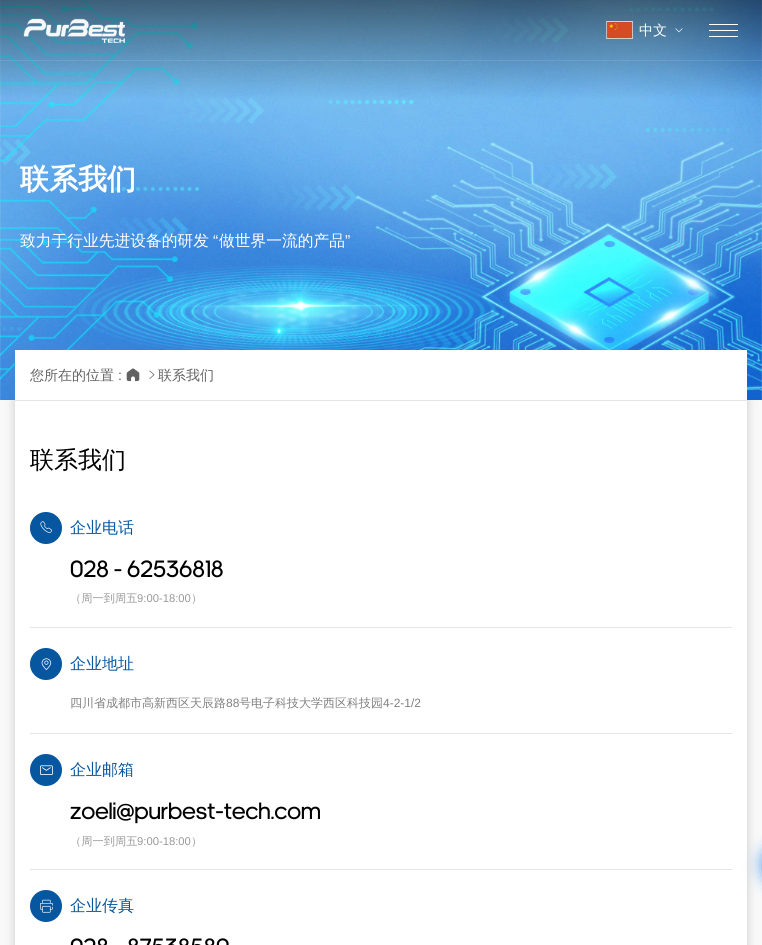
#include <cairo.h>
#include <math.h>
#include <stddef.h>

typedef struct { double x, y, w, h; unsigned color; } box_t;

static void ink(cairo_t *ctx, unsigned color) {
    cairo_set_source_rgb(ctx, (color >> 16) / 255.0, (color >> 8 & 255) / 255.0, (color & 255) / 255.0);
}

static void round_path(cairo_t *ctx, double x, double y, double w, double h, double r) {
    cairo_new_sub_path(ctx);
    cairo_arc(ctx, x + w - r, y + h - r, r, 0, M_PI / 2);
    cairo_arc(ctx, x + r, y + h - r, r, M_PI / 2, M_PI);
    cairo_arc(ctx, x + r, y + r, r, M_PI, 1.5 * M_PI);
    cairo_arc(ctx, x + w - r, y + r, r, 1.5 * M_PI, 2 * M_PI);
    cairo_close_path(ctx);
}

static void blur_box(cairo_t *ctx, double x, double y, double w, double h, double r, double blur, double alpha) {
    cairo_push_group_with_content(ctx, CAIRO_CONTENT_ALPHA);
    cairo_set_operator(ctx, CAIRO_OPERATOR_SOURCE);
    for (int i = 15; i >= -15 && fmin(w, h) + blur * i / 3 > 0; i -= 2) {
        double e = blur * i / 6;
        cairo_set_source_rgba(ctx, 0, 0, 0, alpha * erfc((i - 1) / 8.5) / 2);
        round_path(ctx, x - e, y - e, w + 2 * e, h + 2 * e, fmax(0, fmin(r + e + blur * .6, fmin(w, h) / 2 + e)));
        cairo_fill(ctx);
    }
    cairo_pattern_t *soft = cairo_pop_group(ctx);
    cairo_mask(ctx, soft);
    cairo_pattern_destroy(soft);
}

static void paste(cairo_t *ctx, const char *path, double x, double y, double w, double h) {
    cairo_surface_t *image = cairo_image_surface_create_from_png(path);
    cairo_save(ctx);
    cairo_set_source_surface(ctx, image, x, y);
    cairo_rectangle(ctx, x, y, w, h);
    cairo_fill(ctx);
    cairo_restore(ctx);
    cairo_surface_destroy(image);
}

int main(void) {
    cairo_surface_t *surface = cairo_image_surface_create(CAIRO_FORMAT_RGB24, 762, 945);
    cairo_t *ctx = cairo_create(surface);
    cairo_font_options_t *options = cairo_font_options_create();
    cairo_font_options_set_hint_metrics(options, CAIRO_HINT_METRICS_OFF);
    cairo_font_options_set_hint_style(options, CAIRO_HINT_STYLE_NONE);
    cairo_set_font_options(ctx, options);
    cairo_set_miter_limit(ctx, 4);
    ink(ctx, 0xF9F9F9);
    cairo_paint(ctx);
    ink(ctx, 0x000000);
    blur_box(ctx, 15, 400, 732, 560, 0, 5, 0.2);
    paste(ctx, "media/4.png", 0, 0, 762, 400);
    cairo_set_source_rgba(ctx, 1, 1, 1, 0.1);
    cairo_rectangle(ctx, 0, 60, 762, 1);
    cairo_fill(ctx);
    paste(ctx, "media/1.png", 23, 18, 102, 25);
    paste(ctx, "media/2.png", 606, 21, 27, 18);
    cairo_select_font_face(ctx, "WenQuanYi Zen Hei Medium", CAIRO_FONT_SLANT_NORMAL, CAIRO_FONT_WEIGHT_NORMAL);
    cairo_set_font_size(ctx, 14);
    ink(ctx, 0xFFFFFF);
    cairo_move_to(ctx, 639, 35);
    cairo_show_text(ctx, "中文");
    paste(ctx, "media/3.png", 675, 28, 8, 5);
    {
        static const box_t items[] = {
            {709, 24, 29, 1, 0xFFFFFF},
            {709, 30, 29, 1, 0xFFFFFF},
            {709, 36, 29, 1, 0xFFFFFF},
        };
        for (size_t i = 0; i < sizeof items / sizeof *items; i++) {
            ink(ctx, items[i].color);
            cairo_rectangle(ctx, items[i].x, items[i].y, items[i].w, items[i].h);
            cairo_fill(ctx);
        }
    }
    cairo_select_font_face(ctx, "WenQuanYi Zen Hei", CAIRO_FONT_SLANT_NORMAL, CAIRO_FONT_WEIGHT_BOLD);
    cairo_set_font_size(ctx, 29);
    cairo_move_to(ctx, 20, 189);
    cairo_show_text(ctx, "联系我们");
    cairo_select_font_face(ctx, "WenQuanYi Zen Hei Medium", CAIRO_FONT_SLANT_NORMAL, CAIRO_FONT_WEIGHT_NORMAL);
    cairo_set_font_size(ctx, 15.75);
    cairo_move_to(ctx, 20, 246);
    cairo_show_text(ctx, "致力于行业先进设备的研发");
    cairo_select_font_face(ctx, "Liberation Sans", CAIRO_FONT_SLANT_NORMAL, CAIRO_FONT_WEIGHT_NORMAL);
    cairo_move_to(ctx, 213, 246);
    cairo_show_text(ctx, "“");
    cairo_select_font_face(ctx, "WenQuanYi Zen Hei Medium", CAIRO_FONT_SLANT_NORMAL, CAIRO_FONT_WEIGHT_NORMAL);
    cairo_move_to(ctx, 219, 246);
    cairo_show_text(ctx, "做世界一流的产品");
    cairo_select_font_face(ctx, "Liberation Sans", CAIRO_FONT_SLANT_NORMAL, CAIRO_FONT_WEIGHT_NORMAL);
    cairo_move_to(ctx, 345, 246);
    cairo_show_text(ctx, "”");
    cairo_rectangle(ctx, 15, 350, 732, 50);
    cairo_fill(ctx);
    ink(ctx, 0xE5E5E5);
    cairo_rectangle(ctx, 15, 400, 732, 1);
    cairo_fill(ctx);
    cairo_select_font_face(ctx, "WenQuanYi Zen Hei Medium", CAIRO_FONT_SLANT_NORMAL, CAIRO_FONT_WEIGHT_NORMAL);
    cairo_set_font_size(ctx, 14);
    ink(ctx, 0x626262);
    cairo_move_to(ctx, 30, 380);
    cairo_show_text(ctx, "您所在的位置");
    cairo_select_font_face(ctx, "Liberation Sans", CAIRO_FONT_SLANT_NORMAL, CAIRO_FONT_WEIGHT_NORMAL);
    cairo_move_to(ctx, 118, 380);
    cairo_show_text(ctx, ":");
    paste(ctx, "media/5.png", 126, 368, 14, 14);
    paste(ctx, "media/6.png", 149, 370, 6, 9);
    cairo_select_font_face(ctx, "WenQuanYi Zen Hei Medium", CAIRO_FONT_SLANT_NORMAL, CAIRO_FONT_WEIGHT_NORMAL);
    cairo_move_to(ctx, 158, 380);
    cairo_show_text(ctx, "联系我们");
    ink(ctx, 0xFFFFFF);
    cairo_rectangle(ctx, 15, 401, 732, 544);
    cairo_fill(ctx);
    cairo_set_font_size(ctx, 24);
    ink(ctx, 0x000000);
    cairo_move_to(ctx, 30, 468);
    cairo_show_text(ctx, "联系我们");
    ink(ctx, 0xE5E5E5);
    cairo_rectangle(ctx, 30, 627, 702, 1);
    cairo_fill(ctx);
    ink(ctx, 0x0756A0);
    cairo_arc(ctx, 46, 528, 16, 0, 2 * M_PI);
    cairo_fill(ctx);
    paste(ctx, "media/7.png", 40, 521, 12, 12);
    cairo_set_font_size(ctx, 16);
    cairo_move_to(ctx, 70, 533);
    cairo_show_text(ctx, "企业电话");
    paste(ctx, "media/8.png", 70, 560, 153, 18);
    cairo_set_font_size(ctx, 11.25);
    ink(ctx, 0x999999);
    cairo_move_to(ctx, 70, 602);
    cairo_show_text(ctx, "（周一到周五");
    cairo_select_font_face(ctx, "Liberation Sans", CAIRO_FONT_SLANT_NORMAL, CAIRO_FONT_WEIGHT_NORMAL);
    cairo_move_to(ctx, 137, 602);
    cairo_show_text(ctx, "9:00-18:00");
    cairo_select_font_face(ctx, "WenQuanYi Zen Hei Medium", CAIRO_FONT_SLANT_NORMAL, CAIRO_FONT_WEIGHT_NORMAL);
    cairo_move_to(ctx, 191, 602);
    cairo_show_text(ctx, "）");
    ink(ctx, 0xE5E5E5);
    cairo_rectangle(ctx, 30, 733, 702, 1);
    cairo_fill(ctx);
    ink(ctx, 0x0756A0);
    cairo_arc(ctx, 46, 664, 16, 0, 2 * M_PI);
    cairo_fill(ctx);
    paste(ctx, "media/9.png", 41, 658, 11, 12);
    cairo_set_font_size(ctx, 16);
    cairo_move_to(ctx, 70, 669);
    cairo_show_text(ctx, "企业地址");
    cairo_set_font_size(ctx, 12);
    ink(ctx, 0x808080);
    cairo_move_to(ctx, 70, 707);
    cairo_show_text(ctx, "四川省成都市高新西区天辰路");
    cairo_select_font_face(ctx, "Liberation Sans", CAIRO_FONT_SLANT_NORMAL, CAIRO_FONT_WEIGHT_NORMAL);
    cairo_move_to(ctx, 226, 707);
    cairo_show_text(ctx, "88");
    cairo_select_font_face(ctx, "WenQuanYi Zen Hei Medium", CAIRO_FONT_SLANT_NORMAL, CAIRO_FONT_WEIGHT_NORMAL);
    cairo_move_to(ctx, 239, 707);
    cairo_show_text(ctx, "号电子科技大学西区科技园");
    cairo_select_font_face(ctx, "Liberation Sans", CAIRO_FONT_SLANT_NORMAL, CAIRO_FONT_WEIGHT_NORMAL);
    cairo_move_to(ctx, 383, 707);
    cairo_show_text(ctx, "4-2-1/2");
    ink(ctx, 0xE5E5E5);
    cairo_rectangle(ctx, 30, 869, 702, 1);
    cairo_fill(ctx);
    ink(ctx, 0x0756A0);
    cairo_arc(ctx, 46, 770, 16, 0, 2 * M_PI);
    cairo_fill(ctx);
    paste(ctx, "media/10.png", 40, 765, 13, 10);
    cairo_select_font_face(ctx, "WenQuanYi Zen Hei Medium", CAIRO_FONT_SLANT_NORMAL, CAIRO_FONT_WEIGHT_NORMAL);
    cairo_set_font_size(ctx, 16);
    cairo_move_to(ctx, 70, 775);
    cairo_show_text(ctx, "企业邮箱");
    paste(ctx, "media/11.png", 70, 802, 250, 22);
    cairo_set_font_size(ctx, 11.25);
    ink(ctx, 0x999999);
    cairo_move_to(ctx, 70, 845);
    cairo_show_text(ctx, "（周一到周五");
    cairo_select_font_face(ctx, "Liberation Sans", CAIRO_FONT_SLANT_NORMAL, CAIRO_FONT_WEIGHT_NORMAL);
    cairo_move_to(ctx, 137, 845);
    cairo_show_text(ctx, "9:00-18:00");
    cairo_select_font_face(ctx, "WenQuanYi Zen Hei Medium", CAIRO_FONT_SLANT_NORMAL, CAIRO_FONT_WEIGHT_NORMAL);
    cairo_move_to(ctx, 191, 845);
    cairo_show_text(ctx, "）");
    ink(ctx, 0x0756A0);
    cairo_new_path(ctx);
    cairo_arc(ctx, 46, 906, 16, 0, 2 * M_PI);
    cairo_fill(ctx);
    paste(ctx, "media/12.png", 40, 899, 13, 14);
    cairo_set_font_size(ctx, 16);
    cairo_move_to(ctx, 70, 911);
    cairo_show_text(ctx, "企业传真");
    paste(ctx, "media/13.png", 70, 938, 159, 7);
    ink(ctx, 0x599FE8);
    blur_box(ctx, 762, 845, 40, 40, 20, 8, 1);
    cairo_surface_write_to_png(surface, "image.png");
    cairo_font_options_destroy(options);
    cairo_destroy(ctx);
    cairo_surface_destroy(surface);
    return 0;
}
